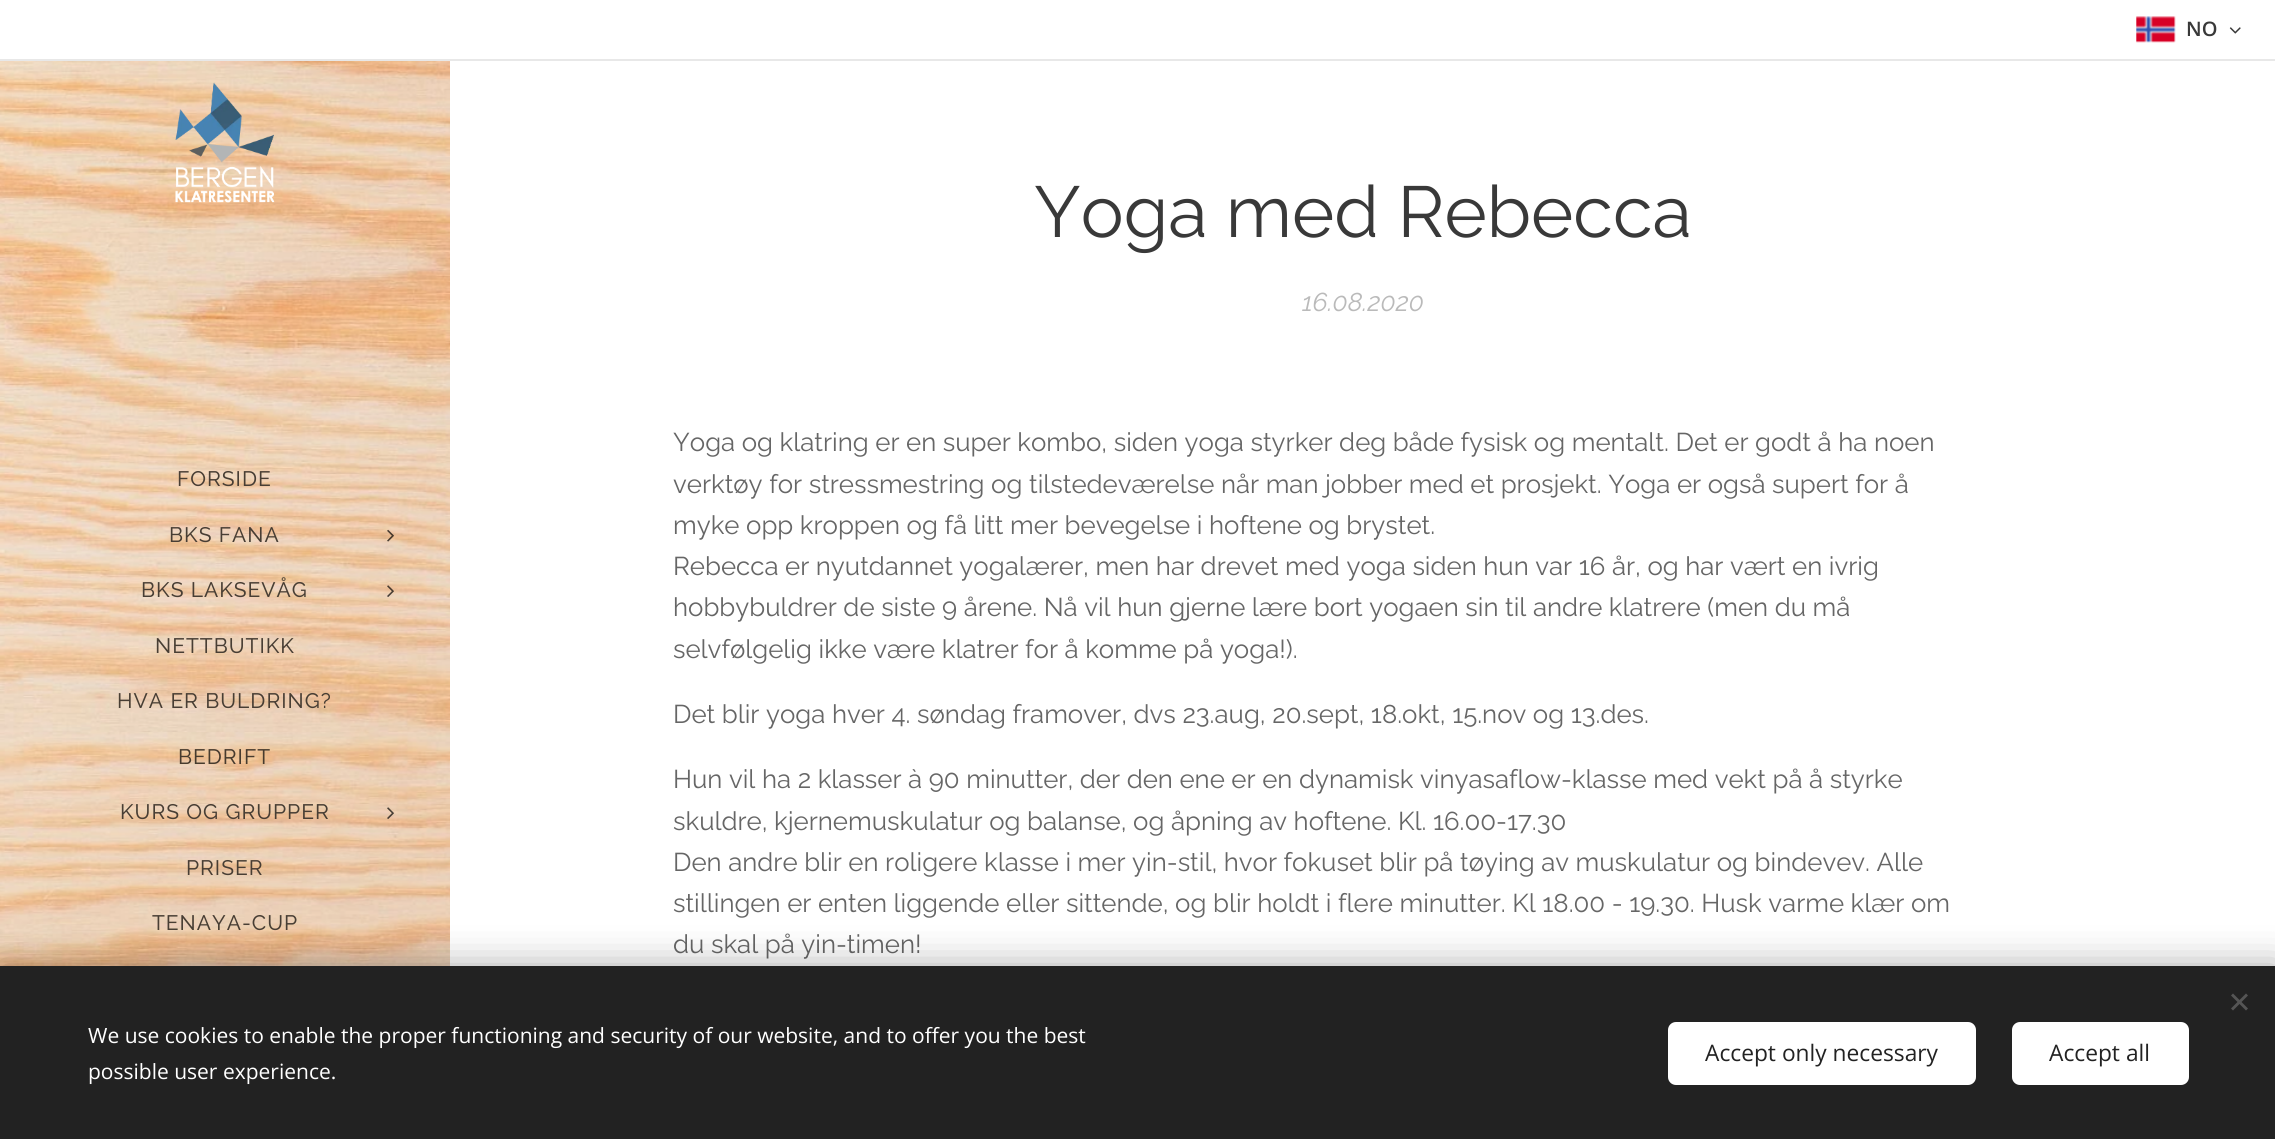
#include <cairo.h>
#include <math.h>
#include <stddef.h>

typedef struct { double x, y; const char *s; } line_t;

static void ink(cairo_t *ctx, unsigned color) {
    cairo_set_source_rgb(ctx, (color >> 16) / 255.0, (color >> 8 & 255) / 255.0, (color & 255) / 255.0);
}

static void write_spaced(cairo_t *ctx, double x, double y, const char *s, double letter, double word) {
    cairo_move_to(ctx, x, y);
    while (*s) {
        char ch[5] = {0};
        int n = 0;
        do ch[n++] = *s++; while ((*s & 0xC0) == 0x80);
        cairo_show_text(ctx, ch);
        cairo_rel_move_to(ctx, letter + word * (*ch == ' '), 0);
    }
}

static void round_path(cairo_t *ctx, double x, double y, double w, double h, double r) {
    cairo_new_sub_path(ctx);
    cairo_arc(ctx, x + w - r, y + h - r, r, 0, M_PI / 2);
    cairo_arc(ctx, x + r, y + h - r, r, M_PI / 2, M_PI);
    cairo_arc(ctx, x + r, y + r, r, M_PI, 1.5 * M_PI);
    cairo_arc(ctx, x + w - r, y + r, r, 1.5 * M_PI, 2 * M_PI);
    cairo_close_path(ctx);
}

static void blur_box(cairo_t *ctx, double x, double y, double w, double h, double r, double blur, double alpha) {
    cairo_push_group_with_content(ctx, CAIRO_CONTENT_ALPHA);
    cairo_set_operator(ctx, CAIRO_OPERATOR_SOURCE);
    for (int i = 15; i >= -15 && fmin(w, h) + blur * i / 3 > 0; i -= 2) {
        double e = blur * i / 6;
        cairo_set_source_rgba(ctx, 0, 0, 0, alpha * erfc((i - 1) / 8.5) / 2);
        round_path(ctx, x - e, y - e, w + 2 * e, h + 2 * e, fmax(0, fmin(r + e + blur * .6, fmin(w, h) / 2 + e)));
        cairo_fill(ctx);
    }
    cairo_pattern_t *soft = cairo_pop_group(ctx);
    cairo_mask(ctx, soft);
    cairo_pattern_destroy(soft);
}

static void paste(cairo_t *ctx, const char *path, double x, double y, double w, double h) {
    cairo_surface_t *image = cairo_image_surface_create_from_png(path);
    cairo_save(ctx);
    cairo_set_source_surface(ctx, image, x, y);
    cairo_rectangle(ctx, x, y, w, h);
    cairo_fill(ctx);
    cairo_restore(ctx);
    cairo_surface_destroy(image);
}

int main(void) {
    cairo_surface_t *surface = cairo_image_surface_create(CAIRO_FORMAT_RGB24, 2275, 1139);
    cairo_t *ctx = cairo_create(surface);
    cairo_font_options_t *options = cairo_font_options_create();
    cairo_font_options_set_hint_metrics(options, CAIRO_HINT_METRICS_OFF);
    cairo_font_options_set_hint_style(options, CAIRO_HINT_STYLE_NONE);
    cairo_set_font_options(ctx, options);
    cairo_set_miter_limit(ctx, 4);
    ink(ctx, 0xFFFFFF);
    cairo_paint(ctx);
    paste(ctx, "media/1.png", 2136, 16, 40, 27);
    cairo_select_font_face(ctx, "Open Sans SemiBold", CAIRO_FONT_SLANT_NORMAL, CAIRO_FONT_WEIGHT_NORMAL);
    cairo_set_font_size(ctx, 20);
    ink(ctx, 0x393939);
    cairo_move_to(ctx, 2186, 36);
    cairo_show_text(ctx, "NO");
    paste(ctx, "media/2.png", 2229, 27, 12, 7);
    ink(ctx, 0xE8E8E8);
    cairo_rectangle(ctx, 0, 59, 2275, 2);
    cairo_fill(ctx);
    paste(ctx, "media/3.png", 0, 61, 450, 905);
    paste(ctx, "media/4.png", 175, 82, 100, 121);
    cairo_select_font_face(ctx, "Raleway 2", CAIRO_FONT_SLANT_NORMAL, CAIRO_FONT_WEIGHT_NORMAL);
    cairo_set_font_size(ctx, 21);
    ink(ctx, 0x483E34);
    write_spaced(ctx, 177, 486, "FORSIDE", 1, 0);
    write_spaced(ctx, 169, 542, "BKS FANA", 1, 0);
    paste(ctx, "media/5.png", 387, 529, 7, 13);
    write_spaced(ctx, 141, 597, "BKS LAKSEVÅG", 1, 0);
    paste(ctx, "media/6.png", 387, 585, 7, 12);
    write_spaced(ctx, 155, 653, "NETTBUTIKK", 1, 0);
    write_spaced(ctx, 117, 708, "HVA ER BULDRING?", 1, 0);
    ink(ctx, 0x473B2E);
    write_spaced(ctx, 178, 764, "BEDRIFT", 1, 0);
    ink(ctx, 0x483E34);
    write_spaced(ctx, 120, 819, "KURS OG GRUPPER", 1, 0);
    paste(ctx, "media/7.png", 387, 807, 7, 12);
    write_spaced(ctx, 186, 875, "PRISER", 1, 0);
    write_spaced(ctx, 152, 930, "TENAYA-CUP", 1, 0);
    cairo_select_font_face(ctx, "Raleway", CAIRO_FONT_SLANT_NORMAL, CAIRO_FONT_WEIGHT_NORMAL);
    cairo_set_font_size(ctx, 72);
    ink(ctx, 0x393939);
    cairo_move_to(ctx, 1034, 237);
    cairo_show_text(ctx, "Yoga med Rebecca");
    cairo_select_font_face(ctx, "Raleway", CAIRO_FONT_SLANT_ITALIC, CAIRO_FONT_WEIGHT_NORMAL);
    cairo_set_font_size(ctx, 25.8);
    ink(ctx, 0xBABABA);
    cairo_move_to(ctx, 1302, 311);
    cairo_show_text(ctx, "16.08.2020");
    cairo_select_font_face(ctx, "Raleway", CAIRO_FONT_SLANT_NORMAL, CAIRO_FONT_WEIGHT_NORMAL);
    ink(ctx, 0x666666);
    {
        static const line_t items[] = {
            {673, 451, "Yoga og klatring er en super kombo, siden yoga styrker deg både fysisk og mentalt. Det er godt å ha noen"},
            {673, 493, "verktøy for stressmestring og tilstedeværelse når man jobber med et prosjekt. Yoga er også supert for å"},
            {673, 534, "myke opp kroppen og få litt mer bevegelse i hoftene og brystet."},
            {673, 575, "Rebecca er nyutdannet yogalærer, men har drevet med yoga siden hun var 16 år, og har vært en ivrig"},
            {673, 616, "hobbybuldrer de siste 9 årene. Nå vil hun gjerne lære bort yogaen sin til andre klatrere (men du må"},
            {673, 658, "selvfølgelig ikke være klatrer for å komme på yoga!)."},
            {673, 723, "Det blir yoga hver 4. søndag framover, dvs 23.aug, 20.sept, 18.okt, 15.nov og 13.des."},
            {673, 788, "Hun vil ha 2 klasser à 90 minutter, der den ene er en dynamisk vinyasaflow-klasse med vekt på å styrke"},
            {673, 830, "skuldre, kjernemuskulatur og balanse, og åpning av hoftene. Kl. 16.00-17.30"},
            {673, 871, "Den andre blir en roligere klasse i mer yin-stil, hvor fokuset blir på tøying av muskulatur og bindevev. Alle"},
            {673, 912, "stillingen er enten liggende eller sittende, og blir holdt i flere minutter. Kl 18.00 - 19.30. Husk varme klær om"},
            {673, 953, "du skal på yin-timen!"},
        };
        for (size_t i = 0; i < sizeof items / sizeof *items; i++) {
            cairo_move_to(ctx, items[i].x, items[i].y);
            cairo_show_text(ctx, items[i].s);
        }
    }
    ink(ctx, 0x000000);
    blur_box(ctx, 0, 966, 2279, 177, 0, 19, 0.33);
    ink(ctx, 0x222222);
    cairo_rectangle(ctx, 0, 966, 2275, 173);
    cairo_fill(ctx);
    ink(ctx, 0x555555);
    cairo_new_path(ctx);
    cairo_move_to(ctx, 2231, 1008.5);
    cairo_line_to(ctx, 2246, 993.5);
    cairo_line_to(ctx, 2248, 995.5);
    cairo_line_to(ctx, 2233, 1010.5);
    cairo_close_path(ctx);
    cairo_fill(ctx);
    cairo_new_path(ctx);
    cairo_move_to(ctx, 2233, 993.5);
    cairo_line_to(ctx, 2248, 1008.5);
    cairo_line_to(ctx, 2246, 1010.5);
    cairo_line_to(ctx, 2231, 995.5);
    cairo_close_path(ctx);
    cairo_fill(ctx);
    cairo_select_font_face(ctx, "Open Sans", CAIRO_FONT_SLANT_NORMAL, CAIRO_FONT_WEIGHT_NORMAL);
    cairo_set_font_size(ctx, 21);
    ink(ctx, 0xFFFFFF);
    cairo_move_to(ctx, 88, 1043);
    cairo_show_text(ctx, "We use cookies to enable the proper functioning and security of our website, and to offer you the best");
    cairo_move_to(ctx, 88, 1079);
    cairo_show_text(ctx, "possible user experience.");
    round_path(ctx, 1668, 1022, 308, 63, 8);
    cairo_fill(ctx);
    cairo_set_font_size(ctx, 22.75);
    ink(ctx, 0x222222);
    cairo_move_to(ctx, 1705, 1061);
    cairo_show_text(ctx, "Accept only necessary");
    ink(ctx, 0xFFFFFF);
    round_path(ctx, 2012, 1022, 177, 63, 8);
    cairo_fill(ctx);
    ink(ctx, 0x222222);
    cairo_move_to(ctx, 2049, 1061);
    cairo_show_text(ctx, "Accept all");
    cairo_surface_write_to_png(surface, "image.png");
    cairo_font_options_destroy(options);
    cairo_destroy(ctx);
    cairo_surface_destroy(surface);
    return 0;
}
